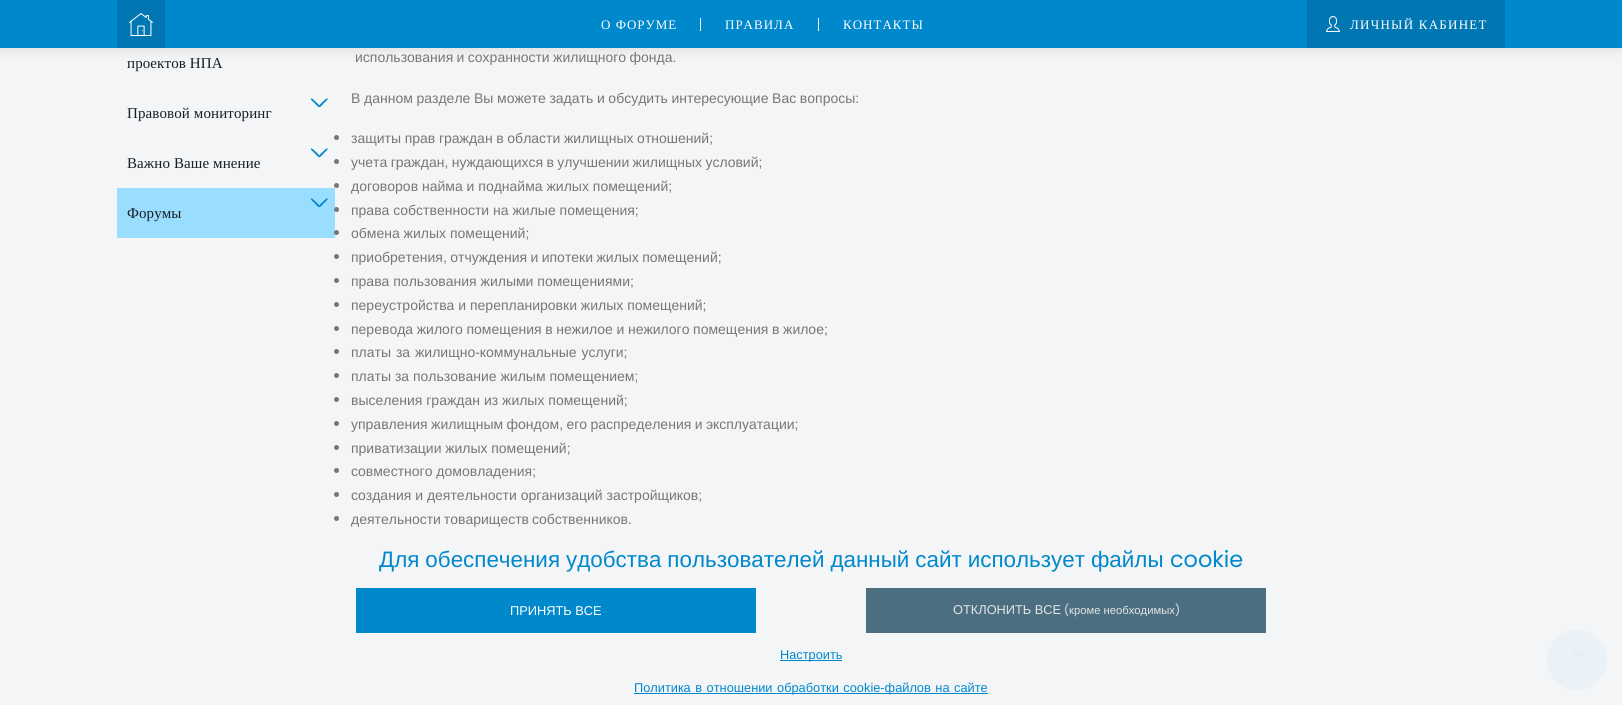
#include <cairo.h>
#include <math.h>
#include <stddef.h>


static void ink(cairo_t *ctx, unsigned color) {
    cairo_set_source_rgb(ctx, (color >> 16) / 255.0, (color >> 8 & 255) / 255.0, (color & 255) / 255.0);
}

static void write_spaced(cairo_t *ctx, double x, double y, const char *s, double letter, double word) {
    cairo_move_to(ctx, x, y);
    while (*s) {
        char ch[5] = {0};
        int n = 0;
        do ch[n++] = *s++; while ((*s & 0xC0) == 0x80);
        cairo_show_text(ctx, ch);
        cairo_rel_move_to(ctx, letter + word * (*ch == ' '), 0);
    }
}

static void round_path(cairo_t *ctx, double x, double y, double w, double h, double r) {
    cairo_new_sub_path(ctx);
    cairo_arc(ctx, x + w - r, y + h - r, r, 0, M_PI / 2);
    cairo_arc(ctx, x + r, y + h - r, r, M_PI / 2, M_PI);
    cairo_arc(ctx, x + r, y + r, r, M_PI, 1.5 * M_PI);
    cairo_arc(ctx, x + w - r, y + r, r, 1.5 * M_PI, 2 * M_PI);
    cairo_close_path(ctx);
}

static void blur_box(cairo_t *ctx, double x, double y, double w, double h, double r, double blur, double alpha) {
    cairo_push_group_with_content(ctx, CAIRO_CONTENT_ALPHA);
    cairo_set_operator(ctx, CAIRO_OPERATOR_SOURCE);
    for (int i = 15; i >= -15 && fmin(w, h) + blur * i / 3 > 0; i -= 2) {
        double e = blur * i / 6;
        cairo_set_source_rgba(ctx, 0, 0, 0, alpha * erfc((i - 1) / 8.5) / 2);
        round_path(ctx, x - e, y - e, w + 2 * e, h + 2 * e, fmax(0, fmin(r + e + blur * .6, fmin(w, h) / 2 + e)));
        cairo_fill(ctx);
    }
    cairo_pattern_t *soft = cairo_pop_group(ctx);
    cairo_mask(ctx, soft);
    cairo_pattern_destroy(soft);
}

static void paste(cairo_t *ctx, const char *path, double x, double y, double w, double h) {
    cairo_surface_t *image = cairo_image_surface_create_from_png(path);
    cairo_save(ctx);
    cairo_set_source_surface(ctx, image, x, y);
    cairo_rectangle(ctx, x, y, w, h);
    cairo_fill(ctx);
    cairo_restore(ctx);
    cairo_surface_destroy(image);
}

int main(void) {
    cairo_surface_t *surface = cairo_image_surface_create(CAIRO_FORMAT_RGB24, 1622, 705);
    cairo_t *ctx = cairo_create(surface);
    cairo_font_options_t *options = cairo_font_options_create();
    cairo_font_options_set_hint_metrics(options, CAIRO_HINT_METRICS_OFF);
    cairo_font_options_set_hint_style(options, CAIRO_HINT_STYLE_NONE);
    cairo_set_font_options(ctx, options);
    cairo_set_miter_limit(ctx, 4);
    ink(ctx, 0xF3F5F7);
    cairo_paint(ctx);
    ink(ctx, 0x000000);
    blur_box(ctx, 0, 0, 1622, 48, 0, 7.5, 0.12);
    ink(ctx, 0x0088CC);
    cairo_rectangle(ctx, 0, 0, 1622, 48);
    cairo_fill(ctx);
    ink(ctx, 0x0077B3);
    cairo_rectangle(ctx, 117, 0, 48, 48);
    cairo_fill(ctx);
    paste(ctx, "media/1.png", 129, 13, 24, 23);
    cairo_select_font_face(ctx, "Liberation Serif", CAIRO_FONT_SLANT_NORMAL, CAIRO_FONT_WEIGHT_NORMAL);
    cairo_set_font_size(ctx, 13);
    ink(ctx, 0xFFFFFF);
    write_spaced(ctx, 601, 29, "О ФОРУМЕ", 1, 0);
    cairo_rectangle(ctx, 700, 18, 1, 13);
    cairo_fill(ctx);
    write_spaced(ctx, 725, 29, "ПРАВИЛА", 1, 0);
    cairo_rectangle(ctx, 818, 18, 1, 13);
    cairo_fill(ctx);
    write_spaced(ctx, 843, 29, "КОНТАКТЫ", 1, 0);
    ink(ctx, 0x0077B2);
    cairo_rectangle(ctx, 1307, 0, 198, 48);
    cairo_fill(ctx);
    paste(ctx, "media/2.png", 1326, 16, 14, 16);
    ink(ctx, 0xFFFFFF);
    write_spaced(ctx, 1350, 29, "ЛИЧНЫЙ КАБИНЕТ", 1.25, 0);
    cairo_set_font_size(ctx, 15);
    ink(ctx, 0x191D24);
    write_spaced(ctx, 127, 68, "проектов НПА", 0.1, 0);
    ink(ctx, 0x0088CC);
    cairo_new_path(ctx);
    cairo_move_to(ctx, 327.5, 98.5);
    cairo_curve_to(ctx, 328.5, 99.5, 324.5, 102.5, 324, 103);
    cairo_curve_to(ctx, 323, 104, 320, 108, 319, 107);
    cairo_curve_to(ctx, 318, 106, 322, 102.5, 322.5, 102);
    cairo_curve_to(ctx, 323.5, 101.5, 326.5, 97.5, 327.5, 98.5);
    cairo_close_path(ctx);
    cairo_fill(ctx);
    cairo_new_path(ctx);
    cairo_move_to(ctx, 311, 98.5);
    cairo_curve_to(ctx, 312, 97.5, 315, 101.5, 316, 102);
    cairo_curve_to(ctx, 316.5, 102.5, 320.5, 106, 319.5, 107);
    cairo_curve_to(ctx, 318.5, 108, 315.5, 104, 314.5, 103);
    cairo_curve_to(ctx, 314, 102.5, 310, 99.5, 311, 98.5);
    cairo_close_path(ctx);
    cairo_fill(ctx);
    ink(ctx, 0x191D24);
    write_spaced(ctx, 127, 118, "Правовой мониторинг", 0.1, 0);
    ink(ctx, 0x0088CC);
    cairo_new_path(ctx);
    cairo_move_to(ctx, 327.5, 148.5);
    cairo_curve_to(ctx, 328.5, 149.5, 324.5, 152.5, 324, 153);
    cairo_curve_to(ctx, 323, 154, 320, 158, 319, 157);
    cairo_curve_to(ctx, 318, 156, 322, 152.5, 322.5, 152);
    cairo_curve_to(ctx, 323.5, 151.5, 326.5, 147.5, 327.5, 148.5);
    cairo_close_path(ctx);
    cairo_fill(ctx);
    cairo_new_path(ctx);
    cairo_move_to(ctx, 311, 148.5);
    cairo_curve_to(ctx, 312, 147.5, 315, 151.5, 316, 152);
    cairo_curve_to(ctx, 316.5, 152.5, 320.5, 156, 319.5, 157);
    cairo_curve_to(ctx, 318.5, 158, 315.5, 154, 314.5, 153);
    cairo_curve_to(ctx, 314, 152.5, 310, 149.5, 311, 148.5);
    cairo_close_path(ctx);
    cairo_fill(ctx);
    ink(ctx, 0x191D24);
    write_spaced(ctx, 127, 168, "Важно Ваше мнение", 0.1, 0);
    ink(ctx, 0x99DDFF);
    cairo_rectangle(ctx, 117, 188, 218, 50);
    cairo_fill(ctx);
    ink(ctx, 0x0088CC);
    cairo_new_path(ctx);
    cairo_move_to(ctx, 327.5, 198.5);
    cairo_curve_to(ctx, 328.5, 199.5, 324.5, 202.5, 324, 203);
    cairo_curve_to(ctx, 323, 204, 320, 208, 319, 207);
    cairo_curve_to(ctx, 318, 206, 322, 202.5, 322.5, 202);
    cairo_curve_to(ctx, 323.5, 201.5, 326.5, 197.5, 327.5, 198.5);
    cairo_close_path(ctx);
    cairo_fill(ctx);
    cairo_new_path(ctx);
    cairo_move_to(ctx, 311, 198.5);
    cairo_curve_to(ctx, 312, 197.5, 315, 201.5, 316, 202);
    cairo_curve_to(ctx, 316.5, 202.5, 320.5, 206, 319.5, 207);
    cairo_curve_to(ctx, 318.5, 208, 315.5, 204, 314.5, 203);
    cairo_curve_to(ctx, 314, 202.5, 310, 199.5, 311, 198.5);
    cairo_close_path(ctx);
    cairo_fill(ctx);
    ink(ctx, 0x191D24);
    write_spaced(ctx, 127, 218, "Форумы", 0.1, 0);
    cairo_select_font_face(ctx, "Liberation Sans", CAIRO_FONT_SLANT_NORMAL, CAIRO_FONT_WEIGHT_NORMAL);
    cairo_set_font_size(ctx, 14);
    ink(ctx, 0x777777);
    write_spaced(ctx, 355, 62, "использования и сохранности жилищного фонда.", 0, -0.5);
    write_spaced(ctx, 351, 103, "В данном разделе Вы можете задать и обсудить интересующие Вас вопросы:", 0, -0.25);
    cairo_new_path(ctx);
    cairo_arc(ctx, 336.5, 137.5, 2.5, 0, 2 * M_PI);
    cairo_fill(ctx);
    write_spaced(ctx, 351, 143, "защиты прав граждан в области жилищных отношений;", 0, -0.25);
    cairo_new_path(ctx);
    cairo_arc(ctx, 336.5, 161.5, 2.5, 0, 2 * M_PI);
    cairo_fill(ctx);
    write_spaced(ctx, 351, 167, "учета граждан, нуждающихся в улучшении жилищных условий;", 0, -0.5);
    cairo_new_path(ctx);
    cairo_arc(ctx, 336.5, 185.5, 2.5, 0, 2 * M_PI);
    cairo_fill(ctx);
    cairo_move_to(ctx, 351, 191);
    cairo_show_text(ctx, "договоров найма и поднайма жилых помещений;");
    cairo_new_path(ctx);
    cairo_arc(ctx, 336.5, 209.5, 2.5, 0, 2 * M_PI);
    cairo_fill(ctx);
    cairo_move_to(ctx, 351, 215);
    cairo_show_text(ctx, "права собственности на жилые помещения;");
    cairo_new_path(ctx);
    cairo_arc(ctx, 336.5, 232.5, 2.5, 0, 2 * M_PI);
    cairo_fill(ctx);
    cairo_move_to(ctx, 351, 238);
    cairo_show_text(ctx, "обмена жилых помещений;");
    cairo_new_path(ctx);
    cairo_arc(ctx, 336.5, 256.5, 2.5, 0, 2 * M_PI);
    cairo_fill(ctx);
    write_spaced(ctx, 351, 262, "приобретения, отчуждения и ипотеки жилых помещений;", 0, -0.5);
    cairo_new_path(ctx);
    cairo_arc(ctx, 336.5, 280.5, 2.5, 0, 2 * M_PI);
    cairo_fill(ctx);
    cairo_move_to(ctx, 351, 286);
    cairo_show_text(ctx, "права пользования жилыми помещениями;");
    cairo_new_path(ctx);
    cairo_arc(ctx, 336.5, 304.5, 2.5, 0, 2 * M_PI);
    cairo_fill(ctx);
    cairo_move_to(ctx, 351, 310);
    cairo_show_text(ctx, "переустройства и перепланировки жилых помещений;");
    cairo_new_path(ctx);
    cairo_arc(ctx, 336.5, 328.5, 2.5, 0, 2 * M_PI);
    cairo_fill(ctx);
    write_spaced(ctx, 351, 334, "перевода жилого помещения в нежилое и нежилого помещения в жилое;", 0, -0.25);
    cairo_new_path(ctx);
    cairo_arc(ctx, 336.5, 351.5, 2.5, 0, 2 * M_PI);
    cairo_fill(ctx);
    write_spaced(ctx, 351, 357, "платы за жилищно-коммунальные услуги;", 0, 1);
    cairo_new_path(ctx);
    cairo_arc(ctx, 336.5, 375.5, 2.5, 0, 2 * M_PI);
    cairo_fill(ctx);
    cairo_move_to(ctx, 351, 381);
    cairo_show_text(ctx, "платы за пользование жилым помещением;");
    cairo_new_path(ctx);
    cairo_arc(ctx, 336.5, 399.5, 2.5, 0, 2 * M_PI);
    cairo_fill(ctx);
    cairo_move_to(ctx, 351, 405);
    cairo_show_text(ctx, "выселения граждан из жилых помещений;");
    cairo_new_path(ctx);
    cairo_arc(ctx, 336.5, 423.5, 2.5, 0, 2 * M_PI);
    cairo_fill(ctx);
    write_spaced(ctx, 351, 429, "управления жилищным фондом, его распределения и эксплуатации;", 0, -0.5);
    cairo_new_path(ctx);
    cairo_arc(ctx, 336.5, 447.5, 2.5, 0, 2 * M_PI);
    cairo_fill(ctx);
    write_spaced(ctx, 351, 453, "приватизации жилых помещений;", 0, -0.25);
    cairo_new_path(ctx);
    cairo_arc(ctx, 336.5, 470.5, 2.5, 0, 2 * M_PI);
    cairo_fill(ctx);
    cairo_move_to(ctx, 351, 476);
    cairo_show_text(ctx, "совместного домовладения;");
    cairo_new_path(ctx);
    cairo_arc(ctx, 336.5, 494.5, 2.5, 0, 2 * M_PI);
    cairo_fill(ctx);
    cairo_move_to(ctx, 351, 500);
    cairo_show_text(ctx, "создания и деятельности организаций застройщиков;");
    cairo_new_path(ctx);
    cairo_arc(ctx, 336.5, 518.5, 2.5, 0, 2 * M_PI);
    cairo_fill(ctx);
    write_spaced(ctx, 351, 524, "деятельности товариществ собственников.", 0, -1);
    cairo_set_font_size(ctx, 22.4);
    ink(ctx, 0x0088CC);
    write_spaced(ctx, 379, 567, "Для обеспечения удобства пользователей данный сайт использует файлы", 0, -0.25);
    cairo_select_font_face(ctx, "Poppins", CAIRO_FONT_SLANT_NORMAL, CAIRO_FONT_WEIGHT_NORMAL);
    cairo_move_to(ctx, 1170, 567);
    cairo_show_text(ctx, "cookie");
    cairo_rectangle(ctx, 356, 588, 400, 45);
    cairo_fill(ctx);
    cairo_select_font_face(ctx, "Liberation Sans", CAIRO_FONT_SLANT_NORMAL, CAIRO_FONT_WEIGHT_NORMAL);
    cairo_set_font_size(ctx, 12.8);
    ink(ctx, 0xFFFFFF);
    cairo_move_to(ctx, 510, 615);
    cairo_show_text(ctx, "ПРИНЯТЬ ВСЕ");
    ink(ctx, 0x4B6F81);
    cairo_rectangle(ctx, 866, 588, 400, 45);
    cairo_fill(ctx);
    ink(ctx, 0xE5E5E5);
    cairo_move_to(ctx, 953, 614);
    cairo_show_text(ctx, "ОТКЛОНИТЬ ВСЕ");
    cairo_select_font_face(ctx, "Poppins", CAIRO_FONT_SLANT_NORMAL, CAIRO_FONT_WEIGHT_NORMAL);
    cairo_set_font_size(ctx, 11.25);
    cairo_move_to(ctx, 1064, 614);
    cairo_show_text(ctx, "(");
    cairo_select_font_face(ctx, "Liberation Sans", CAIRO_FONT_SLANT_NORMAL, CAIRO_FONT_WEIGHT_NORMAL);
    cairo_move_to(ctx, 1069, 614);
    cairo_show_text(ctx, "кроме необходимых");
    cairo_select_font_face(ctx, "Poppins", CAIRO_FONT_SLANT_NORMAL, CAIRO_FONT_WEIGHT_NORMAL);
    cairo_move_to(ctx, 1175, 614);
    cairo_show_text(ctx, ")");
    ink(ctx, 0x0088CC);
    cairo_rectangle(ctx, 780, 660, 62, 1);
    cairo_fill(ctx);
    cairo_select_font_face(ctx, "Liberation Sans", CAIRO_FONT_SLANT_NORMAL, CAIRO_FONT_WEIGHT_NORMAL);
    cairo_set_font_size(ctx, 12.8);
    cairo_move_to(ctx, 780, 659);
    cairo_show_text(ctx, "Настроить");
    cairo_rectangle(ctx, 634, 693, 354, 1);
    cairo_fill(ctx);
    write_spaced(ctx, 634, 692, "Политика в отношении обработки cookie-файлов на сайте", 0, 1);
    ink(ctx, 0xEAF2F7);
    cairo_new_path(ctx);
    cairo_arc(ctx, 1577, 660, 30, 0, 2 * M_PI);
    cairo_fill(ctx);
    cairo_new_path(ctx);
    cairo_move_to(ctx, 1585, 660);
    cairo_line_to(ctx, 1577, 652);
    cairo_line_to(ctx, 1569, 660);
    ink(ctx, 0xE8EAEC);
    cairo_set_line_width(ctx, 1.5);
    cairo_set_line_cap(ctx, CAIRO_LINE_CAP_ROUND);
    cairo_stroke(ctx);
    cairo_surface_write_to_png(surface, "image.png");
    cairo_font_options_destroy(options);
    cairo_destroy(ctx);
    cairo_surface_destroy(surface);
    return 0;
}
